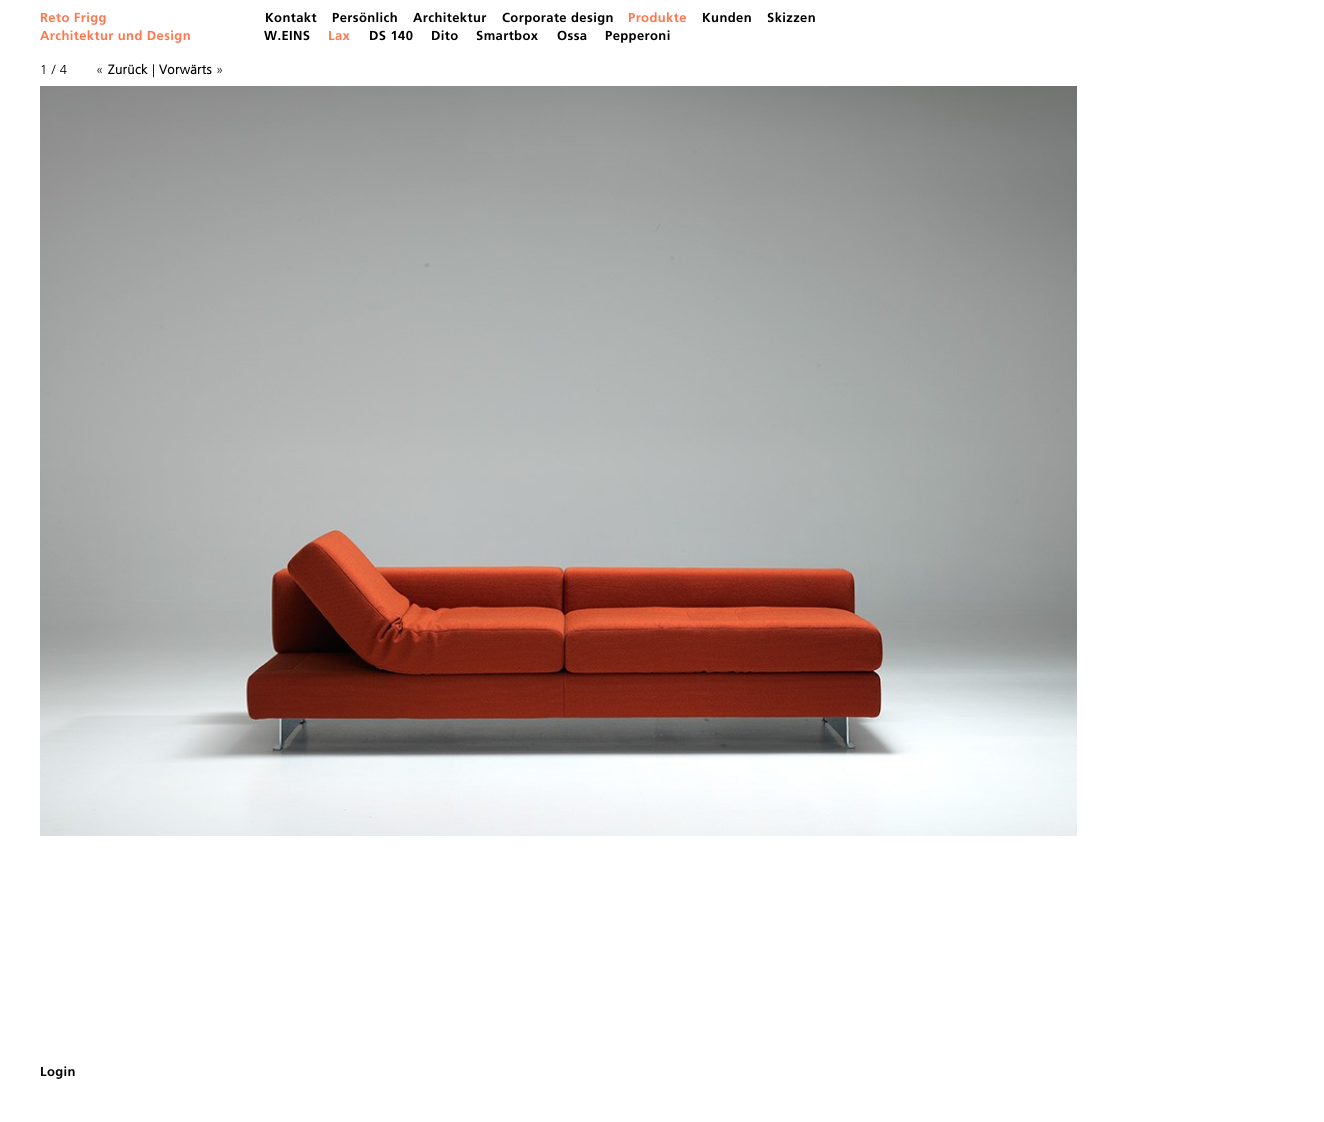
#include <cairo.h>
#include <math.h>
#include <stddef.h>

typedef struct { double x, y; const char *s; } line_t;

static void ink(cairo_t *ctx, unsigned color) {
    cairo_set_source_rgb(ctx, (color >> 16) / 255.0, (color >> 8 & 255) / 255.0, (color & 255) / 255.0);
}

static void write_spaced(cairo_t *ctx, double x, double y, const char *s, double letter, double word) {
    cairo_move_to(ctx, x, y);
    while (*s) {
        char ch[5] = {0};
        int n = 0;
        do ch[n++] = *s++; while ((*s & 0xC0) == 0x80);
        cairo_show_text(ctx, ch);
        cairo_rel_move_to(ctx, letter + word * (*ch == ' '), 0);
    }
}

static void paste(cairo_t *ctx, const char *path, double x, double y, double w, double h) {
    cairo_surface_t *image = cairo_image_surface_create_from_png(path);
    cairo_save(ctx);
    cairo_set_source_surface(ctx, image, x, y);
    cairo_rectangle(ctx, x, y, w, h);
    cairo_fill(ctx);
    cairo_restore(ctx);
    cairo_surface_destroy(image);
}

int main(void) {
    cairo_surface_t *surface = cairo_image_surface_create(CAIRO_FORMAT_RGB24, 1324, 1122);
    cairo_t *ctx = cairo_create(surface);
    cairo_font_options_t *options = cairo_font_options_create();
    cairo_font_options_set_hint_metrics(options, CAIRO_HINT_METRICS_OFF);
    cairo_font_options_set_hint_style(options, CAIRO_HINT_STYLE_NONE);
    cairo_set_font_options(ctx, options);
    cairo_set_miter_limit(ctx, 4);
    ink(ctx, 0xFFFFFF);
    cairo_paint(ctx);
    cairo_select_font_face(ctx, "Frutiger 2", CAIRO_FONT_SLANT_NORMAL, CAIRO_FONT_WEIGHT_BOLD);
    cairo_set_font_size(ctx, 13);
    ink(ctx, 0xFF764D);
    {
        static const line_t items[] = {
            {40, 22, "Reto Frigg"},
            {40, 40, "Architektur und Design"},
            {628, 22, "Produkte"},
        };
        for (size_t i = 0; i < sizeof items / sizeof *items; i++) {
            write_spaced(ctx, items[i].x, items[i].y, items[i].s, 0.4, 0);
        }
    }
    ink(ctx, 0x000000);
    write_spaced(ctx, 264, 40, "W.EINS", 0.4, 0);
    ink(ctx, 0xFF764D);
    write_spaced(ctx, 328, 40, "Lax", 0.4, 0);
    ink(ctx, 0x000000);
    {
        static const line_t items[] = {
            {369, 40, "DS 140"},
            {431, 40, "Dito"},
            {476, 40, "Smartbox"},
            {557, 40, "Ossa"},
            {605, 40, "Pepperoni"},
            {265, 22, "Kontakt"},
            {332, 22, "Persönlich"},
            {413, 22, "Architektur"},
            {502, 22, "Corporate design"},
            {702, 22, "Kunden"},
            {767, 22, "Skizzen"},
            {40, 1076, "Login"},
        };
        for (size_t i = 0; i < sizeof items / sizeof *items; i++) {
            write_spaced(ctx, items[i].x, items[i].y, items[i].s, 0.4, 0);
        }
    }
    cairo_select_font_face(ctx, "Frutiger Light", CAIRO_FONT_SLANT_NORMAL, CAIRO_FONT_WEIGHT_NORMAL);
    write_spaced(ctx, 40, 74, "1 / 4", 0.4, 0);
    write_spaced(ctx, 96, 74, "«", 0.4, 0);
    cairo_select_font_face(ctx, "Frutiger", CAIRO_FONT_SLANT_NORMAL, CAIRO_FONT_WEIGHT_BOLD);
    write_spaced(ctx, 108, 74, "Zurück", 0.4, 0);
    cairo_select_font_face(ctx, "Frutiger Light", CAIRO_FONT_SLANT_NORMAL, CAIRO_FONT_WEIGHT_NORMAL);
    write_spaced(ctx, 152, 74, "|", 0.4, 0);
    cairo_select_font_face(ctx, "Frutiger", CAIRO_FONT_SLANT_NORMAL, CAIRO_FONT_WEIGHT_BOLD);
    write_spaced(ctx, 159, 74, "Vorwärts", 0.4, 0);
    cairo_select_font_face(ctx, "Frutiger Light", CAIRO_FONT_SLANT_NORMAL, CAIRO_FONT_WEIGHT_NORMAL);
    write_spaced(ctx, 216, 74, "»", 0.4, 0);
    paste(ctx, "media/1.png", 40, 86, 1037, 750);
    cairo_surface_write_to_png(surface, "image.png");
    cairo_font_options_destroy(options);
    cairo_destroy(ctx);
    cairo_surface_destroy(surface);
    return 0;
}
